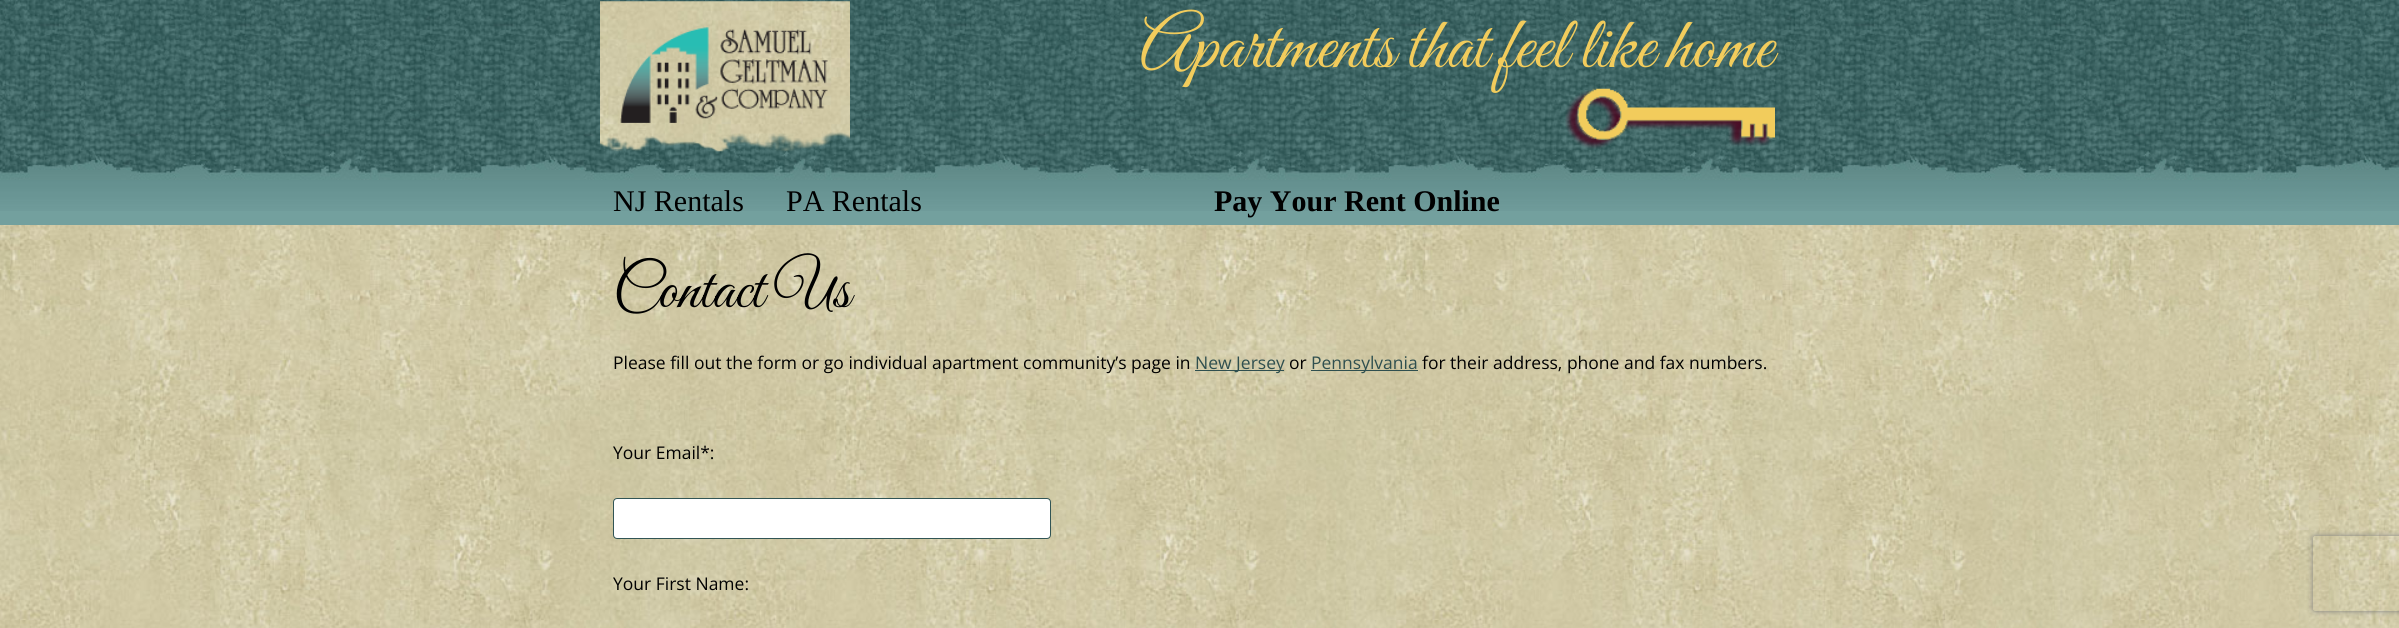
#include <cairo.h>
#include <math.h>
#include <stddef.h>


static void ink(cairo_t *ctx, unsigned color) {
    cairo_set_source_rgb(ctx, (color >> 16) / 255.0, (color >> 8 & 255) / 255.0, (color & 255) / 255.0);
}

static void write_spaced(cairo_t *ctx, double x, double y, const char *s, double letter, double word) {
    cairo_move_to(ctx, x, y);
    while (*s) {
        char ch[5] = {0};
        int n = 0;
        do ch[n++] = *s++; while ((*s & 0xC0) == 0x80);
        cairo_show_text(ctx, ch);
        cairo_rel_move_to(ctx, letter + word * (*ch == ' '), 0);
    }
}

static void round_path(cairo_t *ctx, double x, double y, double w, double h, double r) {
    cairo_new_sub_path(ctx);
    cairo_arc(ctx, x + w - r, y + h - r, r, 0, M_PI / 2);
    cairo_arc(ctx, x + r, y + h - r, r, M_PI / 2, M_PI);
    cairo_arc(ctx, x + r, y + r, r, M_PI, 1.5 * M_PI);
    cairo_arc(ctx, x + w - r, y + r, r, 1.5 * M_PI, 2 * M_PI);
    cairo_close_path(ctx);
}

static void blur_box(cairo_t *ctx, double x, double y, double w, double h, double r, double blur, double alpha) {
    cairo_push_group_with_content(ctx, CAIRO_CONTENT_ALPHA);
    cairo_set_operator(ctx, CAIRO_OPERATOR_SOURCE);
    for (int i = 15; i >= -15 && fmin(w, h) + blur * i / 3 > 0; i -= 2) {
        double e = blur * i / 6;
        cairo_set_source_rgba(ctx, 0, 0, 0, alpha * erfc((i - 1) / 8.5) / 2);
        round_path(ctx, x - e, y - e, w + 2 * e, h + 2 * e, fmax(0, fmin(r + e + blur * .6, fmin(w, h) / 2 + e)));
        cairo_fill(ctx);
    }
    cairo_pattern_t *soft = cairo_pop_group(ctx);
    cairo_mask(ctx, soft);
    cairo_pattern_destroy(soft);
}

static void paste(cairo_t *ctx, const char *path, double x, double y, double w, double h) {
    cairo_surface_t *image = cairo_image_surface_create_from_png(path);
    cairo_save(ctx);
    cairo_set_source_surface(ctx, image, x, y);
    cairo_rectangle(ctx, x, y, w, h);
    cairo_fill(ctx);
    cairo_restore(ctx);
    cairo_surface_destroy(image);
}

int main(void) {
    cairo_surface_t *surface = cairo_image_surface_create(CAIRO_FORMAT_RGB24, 2399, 628);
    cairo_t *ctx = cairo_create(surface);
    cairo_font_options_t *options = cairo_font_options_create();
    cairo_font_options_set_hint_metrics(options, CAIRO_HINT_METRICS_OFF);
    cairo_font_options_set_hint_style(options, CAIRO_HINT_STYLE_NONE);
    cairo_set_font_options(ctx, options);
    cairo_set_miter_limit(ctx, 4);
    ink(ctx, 0xFFFFFF);
    cairo_paint(ctx);
    paste(ctx, "media/1.png", 0, 225, 2399, 403);
    ink(ctx, 0x73A09E);
    cairo_rectangle(ctx, 0, 211, 2399, 14);
    cairo_fill(ctx);
    paste(ctx, "media/2.png", 0, 0, 2399, 211);
    paste(ctx, "media/3.png", 600, 1, 250, 151);
    paste(ctx, "media/4.png", 1565, 88, 210, 61);
    cairo_select_font_face(ctx, "Great Vibes", CAIRO_FONT_SLANT_NORMAL, CAIRO_FONT_WEIGHT_NORMAL);
    cairo_set_font_size(ctx, 74);
    ink(ctx, 0xF2CC5C);
    write_spaced(ctx, 1140, 67, "Apartments that feel like home", 0, -0.5);
    cairo_select_font_face(ctx, "Liberation Serif", CAIRO_FONT_SLANT_NORMAL, CAIRO_FONT_WEIGHT_NORMAL);
    cairo_set_font_size(ctx, 30);
    ink(ctx, 0x000000);
    cairo_move_to(ctx, 613, 211);
    cairo_show_text(ctx, "NJ Rentals");
    cairo_move_to(ctx, 786, 211);
    cairo_show_text(ctx, "PA Rentals");
    cairo_select_font_face(ctx, "Liberation Serif", CAIRO_FONT_SLANT_NORMAL, CAIRO_FONT_WEIGHT_BOLD);
    cairo_move_to(ctx, 1214, 211);
    cairo_show_text(ctx, "Pay Your Rent Online");
    cairo_select_font_face(ctx, "Great Vibes", CAIRO_FONT_SLANT_NORMAL, CAIRO_FONT_WEIGHT_NORMAL);
    cairo_set_font_size(ctx, 62.5);
    cairo_move_to(ctx, 613, 307);
    cairo_show_text(ctx, "Contact Us");
    cairo_select_font_face(ctx, "Open Sans", CAIRO_FONT_SLANT_NORMAL, CAIRO_FONT_WEIGHT_NORMAL);
    cairo_set_font_size(ctx, 17.5);
    cairo_move_to(ctx, 613, 369);
    cairo_show_text(ctx, "Please fill out the form or go individual apartment community’s page in");
    ink(ctx, 0x2F4F4F);
    cairo_rectangle(ctx, 1195, 370, 89, 1);
    cairo_fill(ctx);
    cairo_move_to(ctx, 1195, 369);
    cairo_show_text(ctx, "New Jersey");
    ink(ctx, 0x000000);
    cairo_move_to(ctx, 1289, 369);
    cairo_show_text(ctx, "or");
    ink(ctx, 0x2F4F4F);
    cairo_rectangle(ctx, 1311, 370, 107, 1);
    cairo_fill(ctx);
    cairo_move_to(ctx, 1311, 369);
    cairo_show_text(ctx, "Pennsylvania");
    ink(ctx, 0x000000);
    cairo_move_to(ctx, 1422, 369);
    cairo_show_text(ctx, "for their address, phone and fax numbers.");
    cairo_move_to(ctx, 613, 459);
    cairo_show_text(ctx, "Your Email*:");
    ink(ctx, 0xFFFFFF);
    round_path(ctx, 613.5, 498.5, 437, 40, 3.5);
    cairo_fill_preserve(ctx);
    ink(ctx, 0x315555);
    cairo_set_line_width(ctx, 1);
    cairo_stroke(ctx);
    ink(ctx, 0x000000);
    cairo_move_to(ctx, 613, 590);
    cairo_show_text(ctx, "Your First Name:");
    cairo_save(ctx);
    cairo_set_fill_rule(ctx, CAIRO_FILL_RULE_EVEN_ODD);
    cairo_new_path(ctx);
    cairo_move_to(ctx, 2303, 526);
    cairo_line_to(ctx, 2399, 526);
    cairo_line_to(ctx, 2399, 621);
    cairo_line_to(ctx, 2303, 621);
    cairo_close_path(ctx);
    cairo_move_to(ctx, 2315.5, 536);
    cairo_line_to(ctx, 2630.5, 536);
    cairo_curve_to(ctx, 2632, 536, 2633, 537, 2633, 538.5);
    cairo_line_to(ctx, 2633, 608.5);
    cairo_curve_to(ctx, 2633, 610, 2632, 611, 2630.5, 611);
    cairo_line_to(ctx, 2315.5, 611);
    cairo_curve_to(ctx, 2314, 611, 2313, 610, 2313, 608.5);
    cairo_line_to(ctx, 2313, 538.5);
    cairo_curve_to(ctx, 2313, 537, 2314, 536, 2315.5, 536);
    cairo_close_path(ctx);
    cairo_clip(ctx);
    ink(ctx, 0x808080);
    blur_box(ctx, 2313, 536, 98, 75, 2.5, 3, 1);
    cairo_restore(ctx);
    cairo_surface_write_to_png(surface, "image.png");
    cairo_font_options_destroy(options);
    cairo_destroy(ctx);
    cairo_surface_destroy(surface);
    return 0;
}
